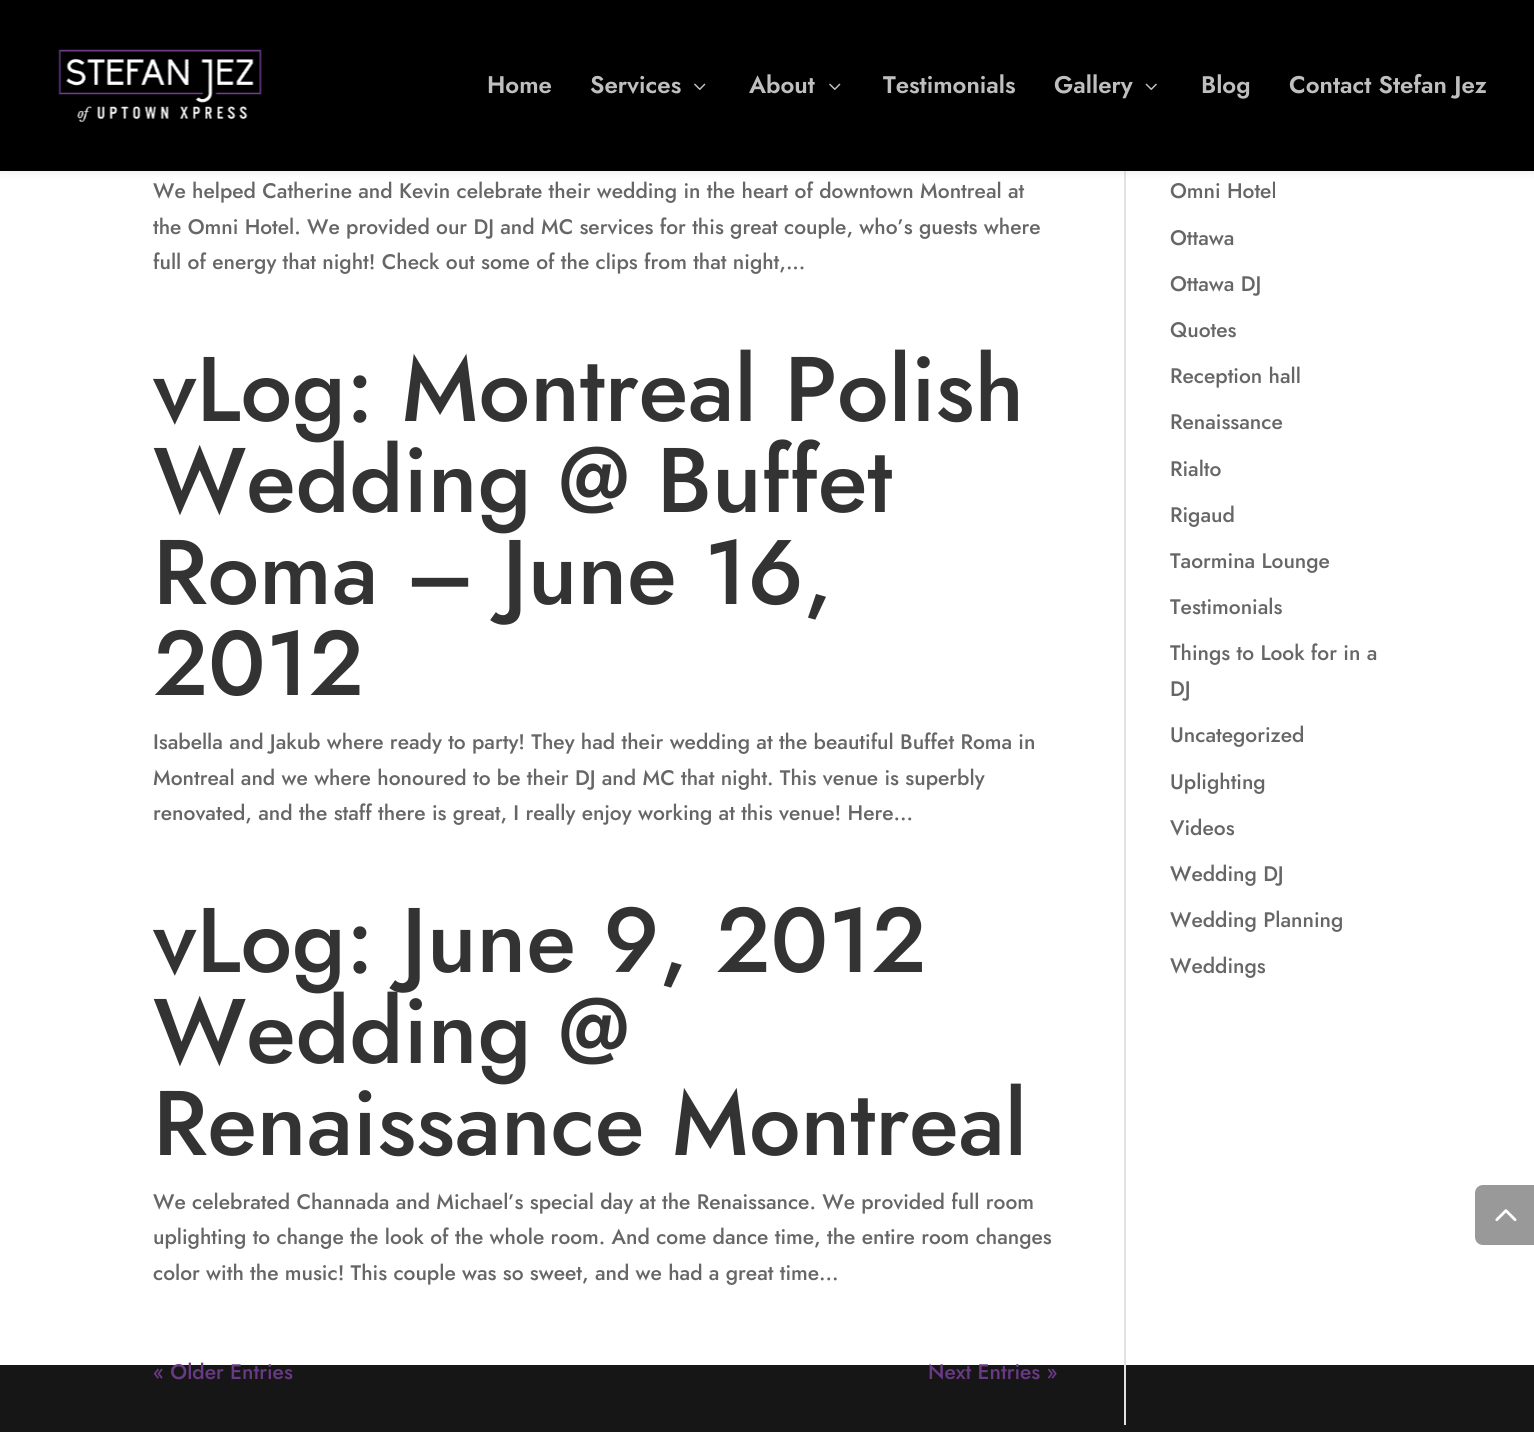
#include <cairo.h>
#include <math.h>
#include <stddef.h>

typedef struct { double x, y; const char *s; } line_t;

static void ink(cairo_t *ctx, unsigned color) {
    cairo_set_source_rgb(ctx, (color >> 16) / 255.0, (color >> 8 & 255) / 255.0, (color & 255) / 255.0);
}

static void round_path(cairo_t *ctx, double x, double y, double w, double h, double r) {
    cairo_new_sub_path(ctx);
    cairo_arc(ctx, x + w - r, y + h - r, r, 0, M_PI / 2);
    cairo_arc(ctx, x + r, y + h - r, r, M_PI / 2, M_PI);
    cairo_arc(ctx, x + r, y + r, r, M_PI, 1.5 * M_PI);
    cairo_arc(ctx, x + w - r, y + r, r, 1.5 * M_PI, 2 * M_PI);
    cairo_close_path(ctx);
}

static void blur_box(cairo_t *ctx, double x, double y, double w, double h, double r, double blur, double alpha) {
    cairo_push_group_with_content(ctx, CAIRO_CONTENT_ALPHA);
    cairo_set_operator(ctx, CAIRO_OPERATOR_SOURCE);
    for (int i = 15; i >= -15 && fmin(w, h) + blur * i / 3 > 0; i -= 2) {
        double e = blur * i / 6;
        cairo_set_source_rgba(ctx, 0, 0, 0, alpha * erfc((i - 1) / 8.5) / 2);
        round_path(ctx, x - e, y - e, w + 2 * e, h + 2 * e, fmax(0, fmin(r + e + blur * .6, fmin(w, h) / 2 + e)));
        cairo_fill(ctx);
    }
    cairo_pattern_t *soft = cairo_pop_group(ctx);
    cairo_mask(ctx, soft);
    cairo_pattern_destroy(soft);
}

static void paste(cairo_t *ctx, const char *path, double x, double y, double w, double h) {
    cairo_surface_t *image = cairo_image_surface_create_from_png(path);
    cairo_save(ctx);
    cairo_set_source_surface(ctx, image, x, y);
    cairo_rectangle(ctx, x, y, w, h);
    cairo_fill(ctx);
    cairo_restore(ctx);
    cairo_surface_destroy(image);
}

int main(void) {
    cairo_surface_t *surface = cairo_image_surface_create(CAIRO_FORMAT_RGB24, 1534, 1432);
    cairo_t *ctx = cairo_create(surface);
    cairo_font_options_t *options = cairo_font_options_create();
    cairo_font_options_set_hint_metrics(options, CAIRO_HINT_METRICS_OFF);
    cairo_font_options_set_hint_style(options, CAIRO_HINT_STYLE_NONE);
    cairo_set_font_options(ctx, options);
    cairo_set_miter_limit(ctx, 4);
    ink(ctx, 0xFFFFFF);
    cairo_paint(ctx);
    ink(ctx, 0x161616);
    cairo_rectangle(ctx, 0, 1365, 1534, 67);
    cairo_fill(ctx);
    ink(ctx, 0xE2E2E2);
    cairo_rectangle(ctx, 1124, 171, 2, 1254);
    cairo_fill(ctx);
    ink(ctx, 0x000000);
    blur_box(ctx, 0, 0, 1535, 171, 0, 5, 0.1);
    ink(ctx, 0x000000);
    cairo_rectangle(ctx, 0, 0, 1534, 171);
    cairo_fill(ctx);
    paste(ctx, "media/1.png", 58, 49, 204, 73);
    cairo_select_font_face(ctx, "Jost SemiBold", CAIRO_FONT_SLANT_NORMAL, CAIRO_FONT_WEIGHT_NORMAL);
    cairo_set_font_size(ctx, 24);
    ink(ctx, 0xBFBFBF);
    cairo_move_to(ctx, 487, 93);
    cairo_show_text(ctx, "Home");
    cairo_move_to(ctx, 590, 93);
    cairo_show_text(ctx, "Services");
    paste(ctx, "media/2.png", 694, 83, 12, 7);
    cairo_move_to(ctx, 749, 93);
    cairo_show_text(ctx, "About");
    paste(ctx, "media/2.png", 829, 83, 12, 7);
    cairo_move_to(ctx, 883, 93);
    cairo_show_text(ctx, "Testimonials");
    cairo_move_to(ctx, 1054, 93);
    cairo_show_text(ctx, "Gallery");
    paste(ctx, "media/3.png", 1145, 83, 12, 7);
    cairo_move_to(ctx, 1201, 93);
    cairo_show_text(ctx, "Blog");
    cairo_move_to(ctx, 1289, 93);
    cairo_show_text(ctx, "Contact Stefan Jez");
    cairo_select_font_face(ctx, "Jost Medium", CAIRO_FONT_SLANT_NORMAL, CAIRO_FONT_WEIGHT_NORMAL);
    cairo_set_font_size(ctx, 21);
    ink(ctx, 0x666666);
    {
        static const line_t items[] = {
            {153, 198, "We helped Catherine and Kevin celebrate their wedding in the heart of downtown Montreal at"},
            {153, 234, "the Omni Hotel. We provided our DJ and MC services for this great couple, who’s guests where"},
            {153, 269, "full of energy that night! Check out some of the clips from that night,..."},
        };
        for (size_t i = 0; i < sizeof items / sizeof *items; i++) {
            cairo_move_to(ctx, items[i].x, items[i].y);
            cairo_show_text(ctx, items[i].s);
        }
    }
    cairo_set_font_size(ctx, 91.5);
    ink(ctx, 0x333333);
    {
        static const line_t items[] = {
            {153, 421, "vLog: Montreal Polish"},
            {153, 512, "Wedding @ Buffet"},
            {153, 604, "Roma – June 16,"},
            {153, 695, "2012"},
        };
        for (size_t i = 0; i < sizeof items / sizeof *items; i++) {
            cairo_move_to(ctx, items[i].x, items[i].y);
            cairo_show_text(ctx, items[i].s);
        }
    }
    cairo_set_font_size(ctx, 21);
    ink(ctx, 0x666666);
    {
        static const line_t items[] = {
            {153, 749, "Isabella and Jakub where ready to party! They had their wedding at the beautiful Buffet Roma in"},
            {153, 785, "Montreal and we where honoured to be their DJ and MC that night. This venue is superbly"},
            {153, 820, "renovated, and the staff there is great, I really enjoy working at this venue! Here..."},
        };
        for (size_t i = 0; i < sizeof items / sizeof *items; i++) {
            cairo_move_to(ctx, items[i].x, items[i].y);
            cairo_show_text(ctx, items[i].s);
        }
    }
    cairo_set_font_size(ctx, 91.5);
    ink(ctx, 0x333333);
    {
        static const line_t items[] = {
            {153, 972, "vLog: June 9, 2012"},
            {153, 1063, "Wedding @"},
            {153, 1155, "Renaissance Montreal"},
        };
        for (size_t i = 0; i < sizeof items / sizeof *items; i++) {
            cairo_move_to(ctx, items[i].x, items[i].y);
            cairo_show_text(ctx, items[i].s);
        }
    }
    cairo_set_font_size(ctx, 21);
    ink(ctx, 0x666666);
    {
        static const line_t items[] = {
            {153, 1209, "We celebrated Channada and Michael’s special day at the Renaissance. We provided full room"},
            {153, 1244, "uplighting to change the look of the whole room. And come dance time, the entire room changes"},
            {153, 1280, "color with the music! This couple was so sweet, and we had a great time..."},
        };
        for (size_t i = 0; i < sizeof items / sizeof *items; i++) {
            cairo_move_to(ctx, items[i].x, items[i].y);
            cairo_show_text(ctx, items[i].s);
        }
    }
    ink(ctx, 0x6A3985);
    cairo_move_to(ctx, 153, 1379);
    cairo_show_text(ctx, "« Older Entries");
    cairo_move_to(ctx, 928, 1379);
    cairo_show_text(ctx, "Next Entries »");
    ink(ctx, 0x666666);
    {
        static const line_t items[] = {
            {1170, 198, "Omni Hotel"},
            {1170, 245, "Ottawa"},
            {1170, 291, "Ottawa DJ"},
            {1170, 337, "Quotes"},
            {1170, 383, "Reception hall"},
            {1170, 429, "Renaissance"},
            {1170, 476, "Rialto"},
            {1170, 522, "Rigaud"},
            {1170, 568, "Taormina Lounge"},
            {1170, 614, "Testimonials"},
            {1170, 660, "Things to Look for in a"},
            {1170, 696, "DJ"},
            {1170, 742, "Uncategorized"},
            {1170, 789, "Uplighting"},
            {1170, 835, "Videos"},
            {1170, 881, "Wedding DJ"},
            {1170, 927, "Wedding Planning"},
            {1170, 973, "Weddings"},
        };
        for (size_t i = 0; i < sizeof items / sizeof *items; i++) {
            cairo_move_to(ctx, items[i].x, items[i].y);
            cairo_show_text(ctx, items[i].s);
        }
    }
    ink(ctx, 0x999999);
    cairo_new_path(ctx);
    cairo_move_to(ctx, 1483, 1185);
    cairo_line_to(ctx, 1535, 1185);
    cairo_line_to(ctx, 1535, 1245);
    cairo_line_to(ctx, 1483, 1245);
    cairo_curve_to(ctx, 1478.5, 1245, 1475, 1241.5, 1475, 1237);
    cairo_line_to(ctx, 1475, 1193);
    cairo_curve_to(ctx, 1475, 1188.5, 1478.5, 1185, 1483, 1185);
    cairo_close_path(ctx);
    cairo_fill(ctx);
    paste(ctx, "media/4.png", 1495, 1209, 22, 13);
    cairo_surface_write_to_png(surface, "image.png");
    cairo_font_options_destroy(options);
    cairo_destroy(ctx);
    cairo_surface_destroy(surface);
    return 0;
}
